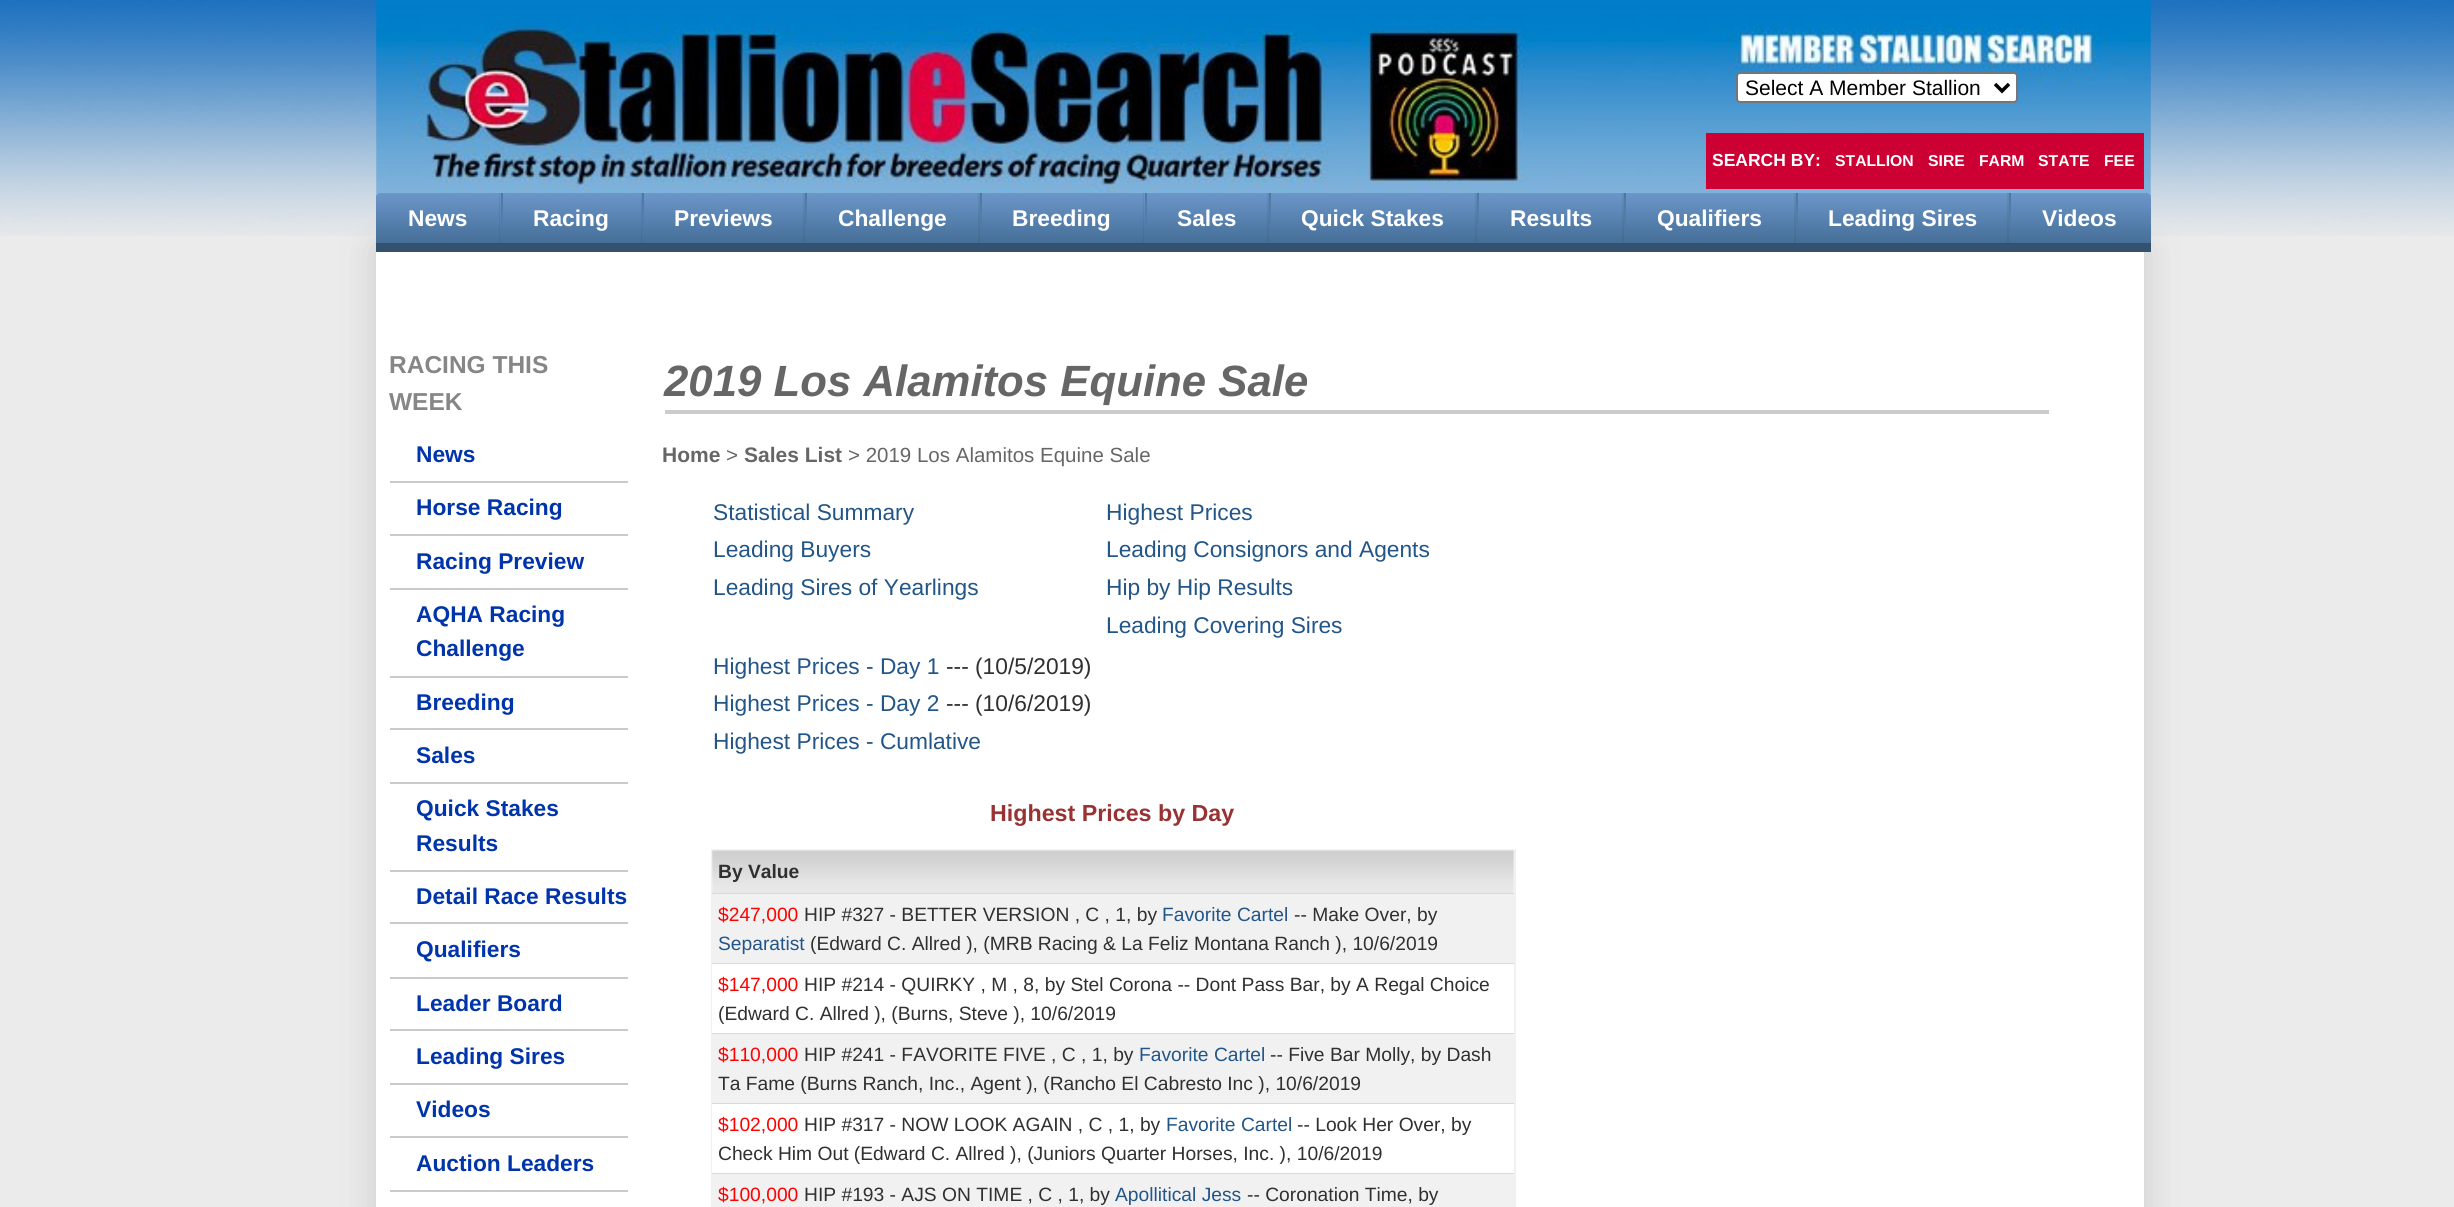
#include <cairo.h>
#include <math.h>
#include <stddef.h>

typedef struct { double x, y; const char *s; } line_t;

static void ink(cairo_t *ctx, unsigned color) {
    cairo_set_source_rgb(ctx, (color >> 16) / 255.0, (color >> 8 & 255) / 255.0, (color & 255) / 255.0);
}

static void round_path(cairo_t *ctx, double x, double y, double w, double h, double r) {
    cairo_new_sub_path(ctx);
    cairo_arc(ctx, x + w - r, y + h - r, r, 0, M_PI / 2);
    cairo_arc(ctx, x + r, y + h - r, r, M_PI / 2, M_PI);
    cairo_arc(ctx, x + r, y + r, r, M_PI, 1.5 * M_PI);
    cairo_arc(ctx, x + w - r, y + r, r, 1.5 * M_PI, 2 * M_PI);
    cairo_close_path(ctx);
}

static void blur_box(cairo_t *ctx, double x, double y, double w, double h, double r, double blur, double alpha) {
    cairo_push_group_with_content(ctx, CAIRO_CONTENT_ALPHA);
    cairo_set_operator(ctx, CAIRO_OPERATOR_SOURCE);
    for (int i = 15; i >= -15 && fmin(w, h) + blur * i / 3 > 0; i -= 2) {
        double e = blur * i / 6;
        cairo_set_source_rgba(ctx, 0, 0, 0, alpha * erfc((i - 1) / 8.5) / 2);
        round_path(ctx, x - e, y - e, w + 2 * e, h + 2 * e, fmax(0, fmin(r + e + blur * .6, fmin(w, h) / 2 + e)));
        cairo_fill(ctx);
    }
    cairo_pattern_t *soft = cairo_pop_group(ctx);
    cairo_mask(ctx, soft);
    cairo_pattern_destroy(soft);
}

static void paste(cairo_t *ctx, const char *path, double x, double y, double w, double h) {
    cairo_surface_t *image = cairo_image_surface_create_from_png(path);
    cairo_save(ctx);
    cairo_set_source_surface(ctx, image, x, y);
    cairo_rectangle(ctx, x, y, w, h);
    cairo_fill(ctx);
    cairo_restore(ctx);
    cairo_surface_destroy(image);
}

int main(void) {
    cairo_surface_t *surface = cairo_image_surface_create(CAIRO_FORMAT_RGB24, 2454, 1207);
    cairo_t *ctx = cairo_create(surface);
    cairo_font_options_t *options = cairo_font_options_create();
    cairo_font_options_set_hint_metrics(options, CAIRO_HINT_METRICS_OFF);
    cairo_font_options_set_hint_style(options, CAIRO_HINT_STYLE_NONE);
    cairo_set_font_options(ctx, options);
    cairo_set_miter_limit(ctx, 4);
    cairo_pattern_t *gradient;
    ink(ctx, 0xEBEBEB);
    cairo_paint(ctx);
    paste(ctx, "media/1.png", 0, 0, 2454, 236);
    paste(ctx, "media/2.png", 376, 0, 1775, 197);
    ink(ctx, 0xFFFFFF);
    round_path(ctx, 1737, 73, 280, 29, 3);
    cairo_fill_preserve(ctx);
    ink(ctx, 0x767676);
    cairo_stroke(ctx);
    cairo_new_path(ctx);
    cairo_move_to(ctx, 1995, 84);
    cairo_line_to(ctx, 2002, 91);
    cairo_line_to(ctx, 2009, 84);
    ink(ctx, 0x000000);
    cairo_set_line_width(ctx, 3.5);
    cairo_stroke(ctx);
    cairo_select_font_face(ctx, "Liberation Sans", CAIRO_FONT_SLANT_NORMAL, CAIRO_FONT_WEIGHT_NORMAL);
    cairo_set_font_size(ctx, 21);
    cairo_move_to(ctx, 1745, 95);
    cairo_show_text(ctx, "Select A Member Stallion");
    ink(ctx, 0xCC0033);
    cairo_rectangle(ctx, 1706, 133, 438, 56);
    cairo_fill(ctx);
    cairo_select_font_face(ctx, "Liberation Sans", CAIRO_FONT_SLANT_NORMAL, CAIRO_FONT_WEIGHT_BOLD);
    cairo_set_font_size(ctx, 17.5);
    ink(ctx, 0xFFFFFF);
    cairo_move_to(ctx, 1712, 166);
    cairo_show_text(ctx, "SEARCH BY:");
    cairo_set_font_size(ctx, 15.75);
    {
        static const line_t items[] = {
            {1835, 166, "STALLION"},
            {1928, 166, "SIRE"},
            {1979, 166, "FARM"},
            {2038, 166, "STATE"},
            {2104, 166, "FEE"},
        };
        for (size_t i = 0; i < sizeof items / sizeof *items; i++) {
            cairo_move_to(ctx, items[i].x, items[i].y);
            cairo_show_text(ctx, items[i].s);
        }
    }
    ink(ctx, 0xCCCCCC);
    blur_box(ctx, 376, 247, 1768, 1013, 0, 17.5, 1);
    gradient = cairo_pattern_create_linear(1264, 192, 1264, 243);
    cairo_pattern_add_color_stop_rgba(gradient, 0, 0.424, 0.592, 0.796, 1);
    cairo_pattern_add_color_stop_rgba(gradient, 1, 0.271, 0.435, 0.596, 1);
    cairo_set_source(ctx, gradient);
    cairo_pattern_destroy(gradient);
    cairo_new_path(ctx);
    cairo_move_to(ctx, 380, 193);
    cairo_line_to(ctx, 2147, 193);
    cairo_curve_to(ctx, 2149, 193, 2151, 195, 2151, 197);
    cairo_line_to(ctx, 2151, 243);
    cairo_line_to(ctx, 376, 243);
    cairo_line_to(ctx, 376, 197);
    cairo_curve_to(ctx, 376, 195, 378, 193, 380, 193);
    cairo_close_path(ctx);
    cairo_fill(ctx);
    ink(ctx, 0x345270);
    cairo_rectangle(ctx, 376, 243, 1775, 9);
    cairo_fill(ctx);
    cairo_set_font_size(ctx, 22.75);
    ink(ctx, 0xFFFFFF);
    cairo_move_to(ctx, 408, 226);
    cairo_show_text(ctx, "News");
    cairo_set_source_rgba(ctx, 0.196, 0.196, 0.196, 0.1);
    cairo_rectangle(ctx, 499, 193, 1, 50);
    cairo_fill(ctx);
    gradient = cairo_pattern_create_linear(501, 193, 501, 243);
    cairo_pattern_add_color_stop_rgba(gradient, 0, 0.298, 0.463, 0.635, 1);
    cairo_pattern_add_color_stop_rgba(gradient, 1, 0.298, 0.463, 0.635, 0);
    cairo_set_source(ctx, gradient);
    cairo_pattern_destroy(gradient);
    cairo_rectangle(ctx, 501, 193, 2, 34);
    cairo_fill(ctx);
    ink(ctx, 0xFFFFFF);
    cairo_move_to(ctx, 533, 226);
    cairo_show_text(ctx, "Racing");
    cairo_set_source_rgba(ctx, 0.196, 0.196, 0.196, 0.1);
    cairo_rectangle(ctx, 641, 193, 1, 50);
    cairo_fill(ctx);
    gradient = cairo_pattern_create_linear(643, 193, 643, 243);
    cairo_pattern_add_color_stop_rgba(gradient, 0, 0.298, 0.463, 0.635, 1);
    cairo_pattern_add_color_stop_rgba(gradient, 1, 0.298, 0.463, 0.635, 0);
    cairo_set_source(ctx, gradient);
    cairo_pattern_destroy(gradient);
    cairo_rectangle(ctx, 642, 193, 2, 34);
    cairo_fill(ctx);
    ink(ctx, 0xFFFFFF);
    cairo_move_to(ctx, 674, 226);
    cairo_show_text(ctx, "Previews");
    cairo_set_source_rgba(ctx, 0.196, 0.196, 0.196, 0.1);
    cairo_rectangle(ctx, 803, 193, 2, 50);
    cairo_fill(ctx);
    gradient = cairo_pattern_create_linear(806, 193, 806, 243);
    cairo_pattern_add_color_stop_rgba(gradient, 0, 0.298, 0.463, 0.635, 1);
    cairo_pattern_add_color_stop_rgba(gradient, 1, 0.298, 0.463, 0.635, 0);
    cairo_set_source(ctx, gradient);
    cairo_pattern_destroy(gradient);
    cairo_rectangle(ctx, 805, 193, 2, 34);
    cairo_fill(ctx);
    ink(ctx, 0xFFFFFF);
    cairo_move_to(ctx, 838, 226);
    cairo_show_text(ctx, "Challenge");
    cairo_set_source_rgba(ctx, 0.196, 0.196, 0.196, 0.1);
    cairo_rectangle(ctx, 978, 193, 2, 50);
    cairo_fill(ctx);
    gradient = cairo_pattern_create_linear(981, 193, 981, 243);
    cairo_pattern_add_color_stop_rgba(gradient, 0, 0.298, 0.463, 0.635, 1);
    cairo_pattern_add_color_stop_rgba(gradient, 1, 0.298, 0.463, 0.635, 0);
    cairo_set_source(ctx, gradient);
    cairo_pattern_destroy(gradient);
    cairo_rectangle(ctx, 980, 193, 2, 34);
    cairo_fill(ctx);
    ink(ctx, 0xFFFFFF);
    cairo_move_to(ctx, 1012, 226);
    cairo_show_text(ctx, "Breeding");
    cairo_set_source_rgba(ctx, 0.196, 0.196, 0.196, 0.1);
    cairo_rectangle(ctx, 1143, 193, 1, 50);
    cairo_fill(ctx);
    gradient = cairo_pattern_create_linear(1145, 193, 1145, 243);
    cairo_pattern_add_color_stop_rgba(gradient, 0, 0.298, 0.463, 0.635, 1);
    cairo_pattern_add_color_stop_rgba(gradient, 1, 0.298, 0.463, 0.635, 0);
    cairo_set_source(ctx, gradient);
    cairo_pattern_destroy(gradient);
    cairo_rectangle(ctx, 1145, 193, 2, 34);
    cairo_fill(ctx);
    ink(ctx, 0xFFFFFF);
    cairo_move_to(ctx, 1177, 226);
    cairo_show_text(ctx, "Sales");
    cairo_set_source_rgba(ctx, 0.196, 0.196, 0.196, 0.1);
    cairo_rectangle(ctx, 1267, 193, 2, 50);
    cairo_fill(ctx);
    gradient = cairo_pattern_create_linear(1270, 193, 1270, 243);
    cairo_pattern_add_color_stop_rgba(gradient, 0, 0.298, 0.463, 0.635, 1);
    cairo_pattern_add_color_stop_rgba(gradient, 1, 0.298, 0.463, 0.635, 0);
    cairo_set_source(ctx, gradient);
    cairo_pattern_destroy(gradient);
    cairo_rectangle(ctx, 1269, 193, 2, 34);
    cairo_fill(ctx);
    ink(ctx, 0xFFFFFF);
    cairo_move_to(ctx, 1301, 226);
    cairo_show_text(ctx, "Quick Stakes");
    cairo_set_source_rgba(ctx, 0.196, 0.196, 0.196, 0.1);
    cairo_rectangle(ctx, 1475, 193, 2, 50);
    cairo_fill(ctx);
    gradient = cairo_pattern_create_linear(1478, 193, 1478, 243);
    cairo_pattern_add_color_stop_rgba(gradient, 0, 0.298, 0.463, 0.635, 1);
    cairo_pattern_add_color_stop_rgba(gradient, 1, 0.298, 0.463, 0.635, 0);
    cairo_set_source(ctx, gradient);
    cairo_pattern_destroy(gradient);
    cairo_rectangle(ctx, 1477, 193, 2, 34);
    cairo_fill(ctx);
    ink(ctx, 0xFFFFFF);
    cairo_move_to(ctx, 1510, 226);
    cairo_show_text(ctx, "Results");
    cairo_set_source_rgba(ctx, 0.196, 0.196, 0.196, 0.1);
    cairo_rectangle(ctx, 1622, 193, 2, 50);
    cairo_fill(ctx);
    gradient = cairo_pattern_create_linear(1625, 193, 1625, 243);
    cairo_pattern_add_color_stop_rgba(gradient, 0, 0.298, 0.463, 0.635, 1);
    cairo_pattern_add_color_stop_rgba(gradient, 1, 0.298, 0.463, 0.635, 0);
    cairo_set_source(ctx, gradient);
    cairo_pattern_destroy(gradient);
    cairo_rectangle(ctx, 1624, 193, 2, 34);
    cairo_fill(ctx);
    ink(ctx, 0xFFFFFF);
    cairo_move_to(ctx, 1657, 226);
    cairo_show_text(ctx, "Qualifiers");
    cairo_set_source_rgba(ctx, 0.196, 0.196, 0.196, 0.1);
    cairo_rectangle(ctx, 1794, 193, 2, 50);
    cairo_fill(ctx);
    gradient = cairo_pattern_create_linear(1796, 193, 1796, 243);
    cairo_pattern_add_color_stop_rgba(gradient, 0, 0.298, 0.463, 0.635, 1);
    cairo_pattern_add_color_stop_rgba(gradient, 1, 0.298, 0.463, 0.635, 0);
    cairo_set_source(ctx, gradient);
    cairo_pattern_destroy(gradient);
    cairo_rectangle(ctx, 1796, 193, 2, 34);
    cairo_fill(ctx);
    ink(ctx, 0xFFFFFF);
    cairo_move_to(ctx, 1828, 226);
    cairo_show_text(ctx, "Leading Sires");
    cairo_set_source_rgba(ctx, 0.196, 0.196, 0.196, 0.1);
    cairo_rectangle(ctx, 2007, 193, 2, 50);
    cairo_fill(ctx);
    gradient = cairo_pattern_create_linear(2010, 193, 2010, 243);
    cairo_pattern_add_color_stop_rgba(gradient, 0, 0.298, 0.463, 0.635, 1);
    cairo_pattern_add_color_stop_rgba(gradient, 1, 0.298, 0.463, 0.635, 0);
    cairo_set_source(ctx, gradient);
    cairo_pattern_destroy(gradient);
    cairo_rectangle(ctx, 2009, 193, 2, 34);
    cairo_fill(ctx);
    ink(ctx, 0xFFFFFF);
    cairo_move_to(ctx, 2042, 226);
    cairo_show_text(ctx, "Videos");
    cairo_rectangle(ctx, 376, 252, 1768, 955);
    cairo_fill(ctx);
    cairo_set_font_size(ctx, 24.5);
    ink(ctx, 0x868686);
    cairo_move_to(ctx, 389, 373);
    cairo_show_text(ctx, "RACING THIS");
    cairo_move_to(ctx, 389, 410);
    cairo_show_text(ctx, "WEEK");
    ink(ctx, 0xCACACA);
    cairo_rectangle(ctx, 390, 481, 238, 2);
    cairo_fill(ctx);
    cairo_set_font_size(ctx, 22.75);
    ink(ctx, 0x0034AB);
    cairo_move_to(ctx, 416, 462);
    cairo_show_text(ctx, "News");
    ink(ctx, 0xCACACA);
    cairo_rectangle(ctx, 390, 534, 238, 2);
    cairo_fill(ctx);
    ink(ctx, 0x0034AB);
    cairo_move_to(ctx, 416, 515);
    cairo_show_text(ctx, "Horse Racing");
    ink(ctx, 0xCACACA);
    cairo_rectangle(ctx, 390, 588, 238, 2);
    cairo_fill(ctx);
    ink(ctx, 0x0034AB);
    cairo_move_to(ctx, 416, 569);
    cairo_show_text(ctx, "Racing Preview");
    ink(ctx, 0xCACACA);
    cairo_rectangle(ctx, 390, 676, 238, 2);
    cairo_fill(ctx);
    ink(ctx, 0x0034AB);
    cairo_move_to(ctx, 416, 622);
    cairo_show_text(ctx, "AQHA Racing");
    cairo_move_to(ctx, 416, 656);
    cairo_show_text(ctx, "Challenge");
    ink(ctx, 0xCACACA);
    cairo_rectangle(ctx, 390, 728, 238, 2);
    cairo_fill(ctx);
    ink(ctx, 0x0034AB);
    cairo_move_to(ctx, 416, 710);
    cairo_show_text(ctx, "Breeding");
    ink(ctx, 0xCACACA);
    cairo_rectangle(ctx, 390, 782, 238, 2);
    cairo_fill(ctx);
    ink(ctx, 0x0034AB);
    cairo_move_to(ctx, 416, 763);
    cairo_show_text(ctx, "Sales");
    ink(ctx, 0xCACACA);
    cairo_rectangle(ctx, 390, 870, 238, 2);
    cairo_fill(ctx);
    ink(ctx, 0x0034AB);
    cairo_move_to(ctx, 416, 816);
    cairo_show_text(ctx, "Quick Stakes");
    cairo_move_to(ctx, 416, 851);
    cairo_show_text(ctx, "Results");
    ink(ctx, 0xCACACA);
    cairo_rectangle(ctx, 390, 922, 238, 2);
    cairo_fill(ctx);
    ink(ctx, 0x0034AB);
    cairo_move_to(ctx, 416, 904);
    cairo_show_text(ctx, "Detail Race Results");
    ink(ctx, 0xCACACA);
    cairo_rectangle(ctx, 390, 977, 238, 2);
    cairo_fill(ctx);
    ink(ctx, 0x0034AB);
    cairo_move_to(ctx, 416, 957);
    cairo_show_text(ctx, "Qualifiers");
    ink(ctx, 0xCACACA);
    cairo_rectangle(ctx, 390, 1029, 238, 2);
    cairo_fill(ctx);
    ink(ctx, 0x0034AB);
    cairo_move_to(ctx, 416, 1011);
    cairo_show_text(ctx, "Leader Board");
    ink(ctx, 0xCACACA);
    cairo_rectangle(ctx, 390, 1083, 238, 2);
    cairo_fill(ctx);
    ink(ctx, 0x0034AB);
    cairo_move_to(ctx, 416, 1064);
    cairo_show_text(ctx, "Leading Sires");
    ink(ctx, 0xCACACA);
    cairo_rectangle(ctx, 390, 1136, 238, 2);
    cairo_fill(ctx);
    ink(ctx, 0x0034AB);
    cairo_move_to(ctx, 416, 1117);
    cairo_show_text(ctx, "Videos");
    ink(ctx, 0xCACACA);
    cairo_rectangle(ctx, 390, 1190, 238, 2);
    cairo_fill(ctx);
    ink(ctx, 0x0034AB);
    cairo_move_to(ctx, 416, 1171);
    cairo_show_text(ctx, "Auction Leaders");
    ink(ctx, 0xCCCCCC);
    cairo_rectangle(ctx, 665, 410, 1384, 4);
    cairo_fill(ctx);
    cairo_select_font_face(ctx, "Liberation Sans", CAIRO_FONT_SLANT_ITALIC, CAIRO_FONT_WEIGHT_BOLD);
    cairo_set_font_size(ctx, 43.75);
    ink(ctx, 0x666666);
    cairo_move_to(ctx, 664, 396);
    cairo_show_text(ctx, "2019 Los Alamitos Equine Sale");
    cairo_select_font_face(ctx, "Liberation Sans", CAIRO_FONT_SLANT_NORMAL, CAIRO_FONT_WEIGHT_BOLD);
    cairo_set_font_size(ctx, 21);
    cairo_move_to(ctx, 662, 462);
    cairo_show_text(ctx, "Home");
    cairo_select_font_face(ctx, "Liberation Sans", CAIRO_FONT_SLANT_NORMAL, CAIRO_FONT_WEIGHT_NORMAL);
    cairo_set_font_size(ctx, 20.5);
    cairo_move_to(ctx, 726, 462);
    cairo_show_text(ctx, ">");
    cairo_select_font_face(ctx, "Liberation Sans", CAIRO_FONT_SLANT_NORMAL, CAIRO_FONT_WEIGHT_BOLD);
    cairo_set_font_size(ctx, 21);
    cairo_move_to(ctx, 744, 462);
    cairo_show_text(ctx, "Sales List");
    cairo_select_font_face(ctx, "Liberation Sans", CAIRO_FONT_SLANT_NORMAL, CAIRO_FONT_WEIGHT_NORMAL);
    cairo_set_font_size(ctx, 20.5);
    cairo_move_to(ctx, 848, 462);
    cairo_show_text(ctx, "> 2019 Los Alamitos Equine Sale");
    cairo_set_font_size(ctx, 22.75);
    ink(ctx, 0x225588);
    {
        static const line_t items[] = {
            {713, 520, "Statistical Summary"},
            {1106, 520, "Highest Prices"},
            {713, 557, "Leading Buyers"},
            {1106, 557, "Leading Consignors and Agents"},
            {713, 595, "Leading Sires of Yearlings"},
            {1106, 595, "Hip by Hip Results"},
            {1106, 633, "Leading Covering Sires"},
            {713, 674, "Highest Prices - Day 1"},
        };
        for (size_t i = 0; i < sizeof items / sizeof *items; i++) {
            cairo_move_to(ctx, items[i].x, items[i].y);
            cairo_show_text(ctx, items[i].s);
        }
    }
    ink(ctx, 0x303030);
    cairo_move_to(ctx, 946, 674);
    cairo_show_text(ctx, "--- (10/5/2019)");
    ink(ctx, 0x225588);
    cairo_move_to(ctx, 713, 711);
    cairo_show_text(ctx, "Highest Prices - Day 2");
    ink(ctx, 0x303030);
    cairo_move_to(ctx, 946, 711);
    cairo_show_text(ctx, "--- (10/6/2019)");
    ink(ctx, 0x225588);
    cairo_move_to(ctx, 713, 749);
    cairo_show_text(ctx, "Highest Prices - Cumlative");
    cairo_select_font_face(ctx, "Liberation Sans", CAIRO_FONT_SLANT_NORMAL, CAIRO_FONT_WEIGHT_BOLD);
    cairo_set_font_size(ctx, 23.25);
    ink(ctx, 0x993333);
    cairo_move_to(ctx, 990, 821);
    cairo_show_text(ctx, "Highest Prices by Day");
    cairo_rectangle(ctx, 712, 850, 803, 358);
    ink(ctx, 0xF1F1F1);
    cairo_set_line_width(ctx, 2);
    cairo_stroke(ctx);
    paste(ctx, "media/3.png", 712, 850, 802, 43);
    ink(ctx, 0xD9D9D9);
    cairo_rectangle(ctx, 712, 893, 802, 1);
    cairo_fill(ctx);
    cairo_set_font_size(ctx, 19.25);
    ink(ctx, 0x303030);
    cairo_move_to(ctx, 718, 878);
    cairo_show_text(ctx, "By Value");
    ink(ctx, 0xF1F1F1);
    cairo_rectangle(ctx, 713, 894, 801, 69);
    cairo_fill(ctx);
    ink(ctx, 0xD9D9D9);
    cairo_rectangle(ctx, 712, 963, 802, 1);
    cairo_fill(ctx);
    cairo_select_font_face(ctx, "Liberation Sans", CAIRO_FONT_SLANT_NORMAL, CAIRO_FONT_WEIGHT_NORMAL);
    ink(ctx, 0xFF0000);
    cairo_move_to(ctx, 718, 921);
    cairo_show_text(ctx, "$247,000");
    ink(ctx, 0x303030);
    cairo_move_to(ctx, 804, 921);
    cairo_show_text(ctx, "HIP #327 - BETTER VERSION , C , 1, by");
    ink(ctx, 0x225588);
    cairo_move_to(ctx, 1162, 921);
    cairo_show_text(ctx, "Favorite Cartel");
    ink(ctx, 0x303030);
    cairo_move_to(ctx, 1294, 921);
    cairo_show_text(ctx, "-- Make Over, by");
    ink(ctx, 0x225588);
    cairo_move_to(ctx, 718, 950);
    cairo_show_text(ctx, "Separatist");
    ink(ctx, 0x303030);
    cairo_move_to(ctx, 810, 950);
    cairo_show_text(ctx, "(Edward C. Allred ), (MRB Racing & La Feliz Montana Ranch ), 10/6/2019");
    ink(ctx, 0xFFFFFF);
    cairo_rectangle(ctx, 712, 964, 1, 69);
    cairo_fill(ctx);
    ink(ctx, 0xD9D9D9);
    cairo_rectangle(ctx, 712, 1033, 802, 1);
    cairo_fill(ctx);
    ink(ctx, 0xFF0000);
    cairo_move_to(ctx, 718, 991);
    cairo_show_text(ctx, "$147,000");
    ink(ctx, 0x303030);
    cairo_move_to(ctx, 804, 991);
    cairo_show_text(ctx, "HIP #214 - QUIRKY , M , 8, by Stel Corona -- Dont Pass Bar, by A Regal Choice");
    cairo_move_to(ctx, 718, 1020);
    cairo_show_text(ctx, "(Edward C. Allred ), (Burns, Steve ), 10/6/2019");
    ink(ctx, 0xF1F1F1);
    cairo_rectangle(ctx, 713, 1034, 801, 69);
    cairo_fill(ctx);
    ink(ctx, 0xD9D9D9);
    cairo_rectangle(ctx, 712, 1103, 802, 1);
    cairo_fill(ctx);
    ink(ctx, 0xFF0000);
    cairo_move_to(ctx, 718, 1061);
    cairo_show_text(ctx, "$110,000");
    ink(ctx, 0x303030);
    cairo_move_to(ctx, 804, 1061);
    cairo_show_text(ctx, "HIP #241 - FAVORITE FIVE , C , 1, by");
    ink(ctx, 0x225588);
    cairo_move_to(ctx, 1139, 1061);
    cairo_show_text(ctx, "Favorite Cartel");
    ink(ctx, 0x303030);
    cairo_move_to(ctx, 1270, 1061);
    cairo_show_text(ctx, "-- Five Bar Molly, by Dash");
    cairo_move_to(ctx, 718, 1090);
    cairo_show_text(ctx, "Ta Fame (Burns Ranch, Inc., Agent ), (Rancho El Cabresto Inc ), 10/6/2019");
    ink(ctx, 0xFFFFFF);
    cairo_rectangle(ctx, 712, 1104, 1, 69);
    cairo_fill(ctx);
    ink(ctx, 0xD9D9D9);
    cairo_rectangle(ctx, 712, 1173, 802, 1);
    cairo_fill(ctx);
    ink(ctx, 0xFF0000);
    cairo_move_to(ctx, 718, 1131);
    cairo_show_text(ctx, "$102,000");
    ink(ctx, 0x303030);
    cairo_move_to(ctx, 804, 1131);
    cairo_show_text(ctx, "HIP #317 - NOW LOOK AGAIN , C , 1, by");
    ink(ctx, 0x225588);
    cairo_move_to(ctx, 1166, 1131);
    cairo_show_text(ctx, "Favorite Cartel");
    ink(ctx, 0x303030);
    cairo_move_to(ctx, 1297, 1131);
    cairo_show_text(ctx, "-- Look Her Over, by");
    cairo_move_to(ctx, 718, 1160);
    cairo_show_text(ctx, "Check Him Out (Edward C. Allred ), (Juniors Quarter Horses, Inc. ), 10/6/2019");
    ink(ctx, 0xF1F1F1);
    cairo_rectangle(ctx, 713, 1174, 801, 33);
    cairo_fill(ctx);
    ink(ctx, 0xFF0000);
    cairo_move_to(ctx, 718, 1201);
    cairo_show_text(ctx, "$100,000");
    ink(ctx, 0x303030);
    cairo_move_to(ctx, 804, 1201);
    cairo_show_text(ctx, "HIP #193 - AJS ON TIME , C , 1, by");
    ink(ctx, 0x225588);
    cairo_move_to(ctx, 1115, 1201);
    cairo_show_text(ctx, "Apollitical Jess");
    ink(ctx, 0x303030);
    cairo_move_to(ctx, 1247, 1201);
    cairo_show_text(ctx, "-- Coronation Time, by");
    cairo_surface_write_to_png(surface, "image.png");
    cairo_font_options_destroy(options);
    cairo_destroy(ctx);
    cairo_surface_destroy(surface);
    return 0;
}
